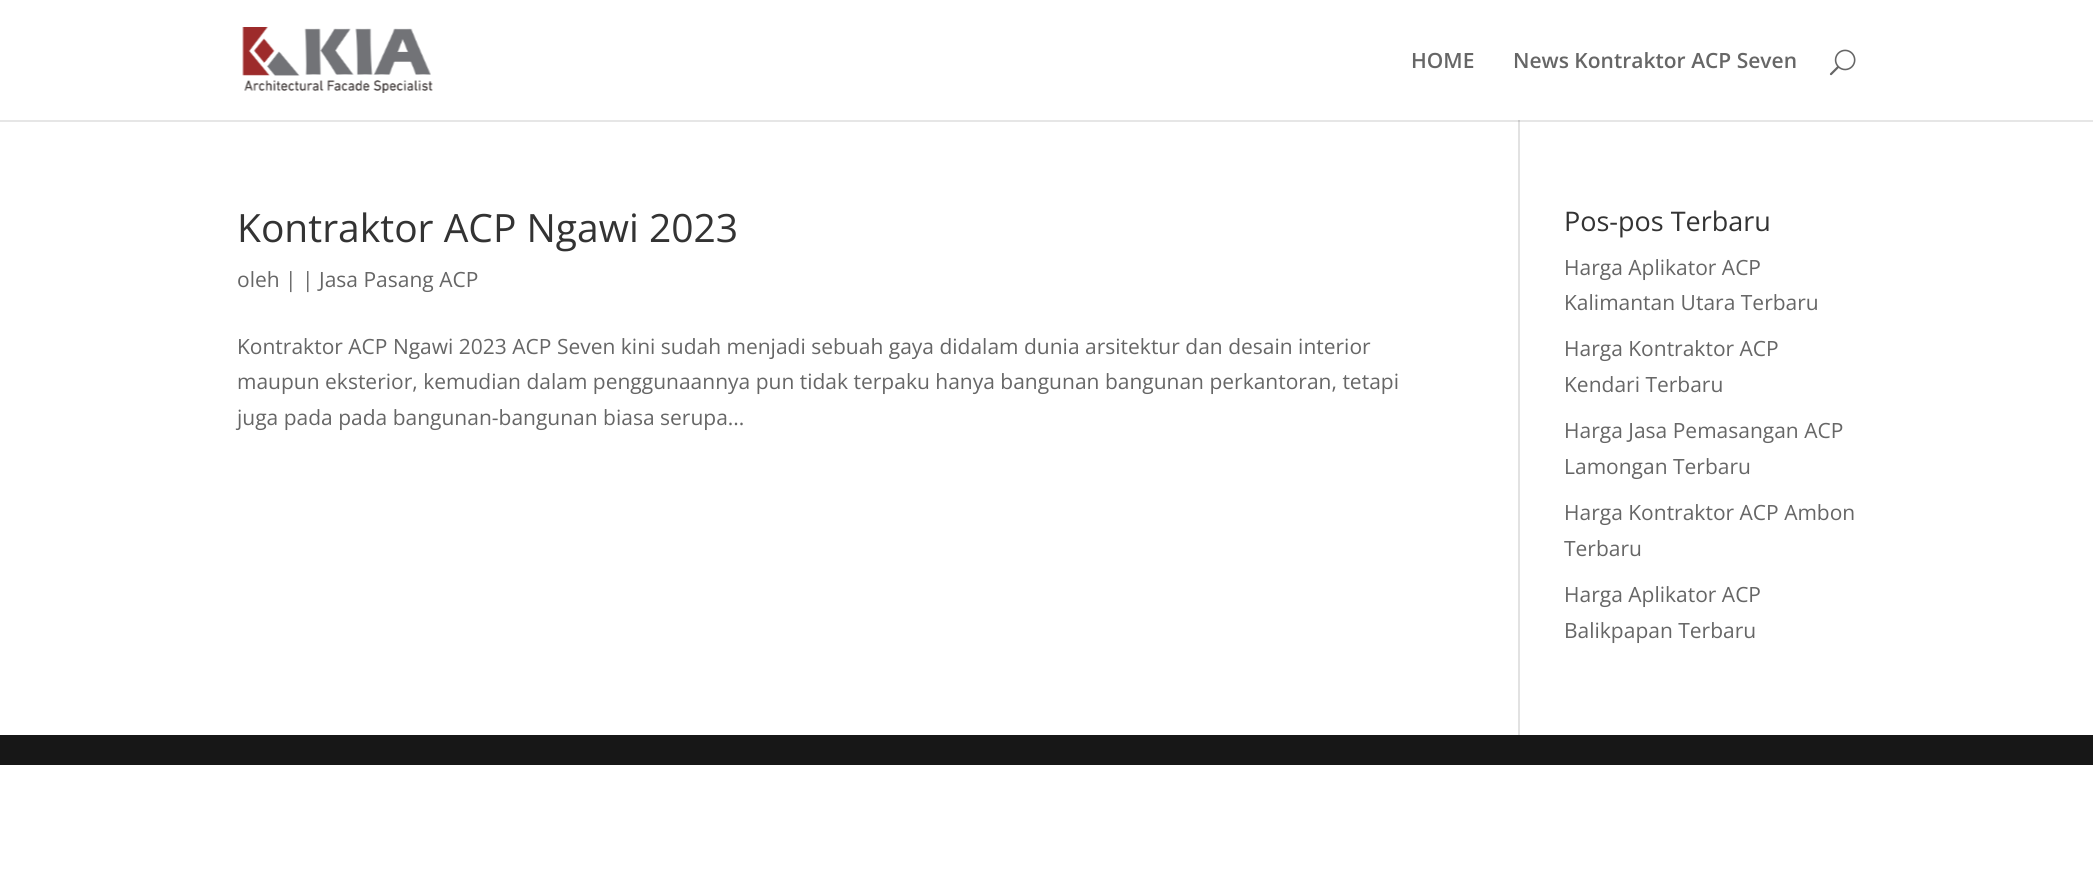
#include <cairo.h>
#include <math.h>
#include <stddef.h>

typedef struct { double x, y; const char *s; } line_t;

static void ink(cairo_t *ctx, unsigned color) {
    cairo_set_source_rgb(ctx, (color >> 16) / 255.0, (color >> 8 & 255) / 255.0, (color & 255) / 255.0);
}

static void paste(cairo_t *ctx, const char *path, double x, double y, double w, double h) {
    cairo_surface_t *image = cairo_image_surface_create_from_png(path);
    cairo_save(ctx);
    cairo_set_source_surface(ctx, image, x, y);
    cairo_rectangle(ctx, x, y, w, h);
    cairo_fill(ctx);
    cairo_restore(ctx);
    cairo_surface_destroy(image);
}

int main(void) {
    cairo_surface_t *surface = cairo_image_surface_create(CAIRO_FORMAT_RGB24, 2093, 893);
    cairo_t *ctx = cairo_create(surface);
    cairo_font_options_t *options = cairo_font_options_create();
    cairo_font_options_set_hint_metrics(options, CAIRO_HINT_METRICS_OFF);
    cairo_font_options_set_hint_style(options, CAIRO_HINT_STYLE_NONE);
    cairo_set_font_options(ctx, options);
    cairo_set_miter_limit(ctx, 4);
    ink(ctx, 0xFFFFFF);
    cairo_paint(ctx);
    ink(ctx, 0xE6E6E6);
    cairo_rectangle(ctx, 0, 120, 2093, 2);
    cairo_fill(ctx);
    paste(ctx, "media/1.png", 242, 27, 191, 66);
    cairo_select_font_face(ctx, "Open Sans SemiBold", CAIRO_FONT_SLANT_NORMAL, CAIRO_FONT_WEIGHT_NORMAL);
    cairo_set_font_size(ctx, 21);
    ink(ctx, 0x666666);
    cairo_move_to(ctx, 1411, 68);
    cairo_show_text(ctx, "HOME");
    cairo_move_to(ctx, 1513, 68);
    cairo_show_text(ctx, "News Kontraktor ACP Seven");
    paste(ctx, "media/2.png", 1829, 49, 27, 27);
    ink(ctx, 0xE2E2E2);
    cairo_rectangle(ctx, 1518, 120, 2, 615);
    cairo_fill(ctx);
    ink(ctx, 0xCBCBCB);
    cairo_rectangle(ctx, 1518, 120, 2, 2);
    cairo_fill(ctx);
    cairo_select_font_face(ctx, "Open Sans", CAIRO_FONT_SLANT_NORMAL, CAIRO_FONT_WEIGHT_NORMAL);
    cairo_set_font_size(ctx, 39);
    ink(ctx, 0x333333);
    cairo_move_to(ctx, 237, 242);
    cairo_show_text(ctx, "Kontraktor ACP Ngawi 2023");
    cairo_set_font_size(ctx, 21);
    ink(ctx, 0x666666);
    {
        static const line_t items[] = {
            {237, 287, "oleh | | Jasa Pasang ACP"},
            {237, 354, "Kontraktor ACP Ngawi 2023 ACP Seven kini sudah menjadi sebuah gaya didalam dunia arsitektur dan desain interior"},
            {237, 389, "maupun eksterior, kemudian dalam penggunaannya pun tidak terpaku hanya bangunan bangunan perkantoran, tetapi"},
            {237, 425, "juga pada pada bangunan-bangunan biasa serupa..."},
        };
        for (size_t i = 0; i < sizeof items / sizeof *items; i++) {
            cairo_move_to(ctx, items[i].x, items[i].y);
            cairo_show_text(ctx, items[i].s);
        }
    }
    cairo_set_font_size(ctx, 27);
    ink(ctx, 0x333333);
    cairo_move_to(ctx, 1564, 231);
    cairo_show_text(ctx, "Pos-pos Terbaru");
    cairo_set_font_size(ctx, 21);
    ink(ctx, 0x666666);
    {
        static const line_t items[] = {
            {1564, 275, "Harga Aplikator ACP"},
            {1564, 310, "Kalimantan Utara Terbaru"},
            {1564, 356, "Harga Kontraktor ACP"},
            {1564, 392, "Kendari Terbaru"},
            {1564, 438, "Harga Jasa Pemasangan ACP"},
            {1564, 474, "Lamongan Terbaru"},
            {1564, 520, "Harga Kontraktor ACP Ambon"},
            {1564, 556, "Terbaru"},
            {1564, 602, "Harga Aplikator ACP"},
            {1564, 638, "Balikpapan Terbaru"},
        };
        for (size_t i = 0; i < sizeof items / sizeof *items; i++) {
            cairo_move_to(ctx, items[i].x, items[i].y);
            cairo_show_text(ctx, items[i].s);
        }
    }
    ink(ctx, 0x171717);
    cairo_rectangle(ctx, 0, 735, 2093, 30);
    cairo_fill(ctx);
    cairo_surface_write_to_png(surface, "image.png");
    cairo_font_options_destroy(options);
    cairo_destroy(ctx);
    cairo_surface_destroy(surface);
    return 0;
}
